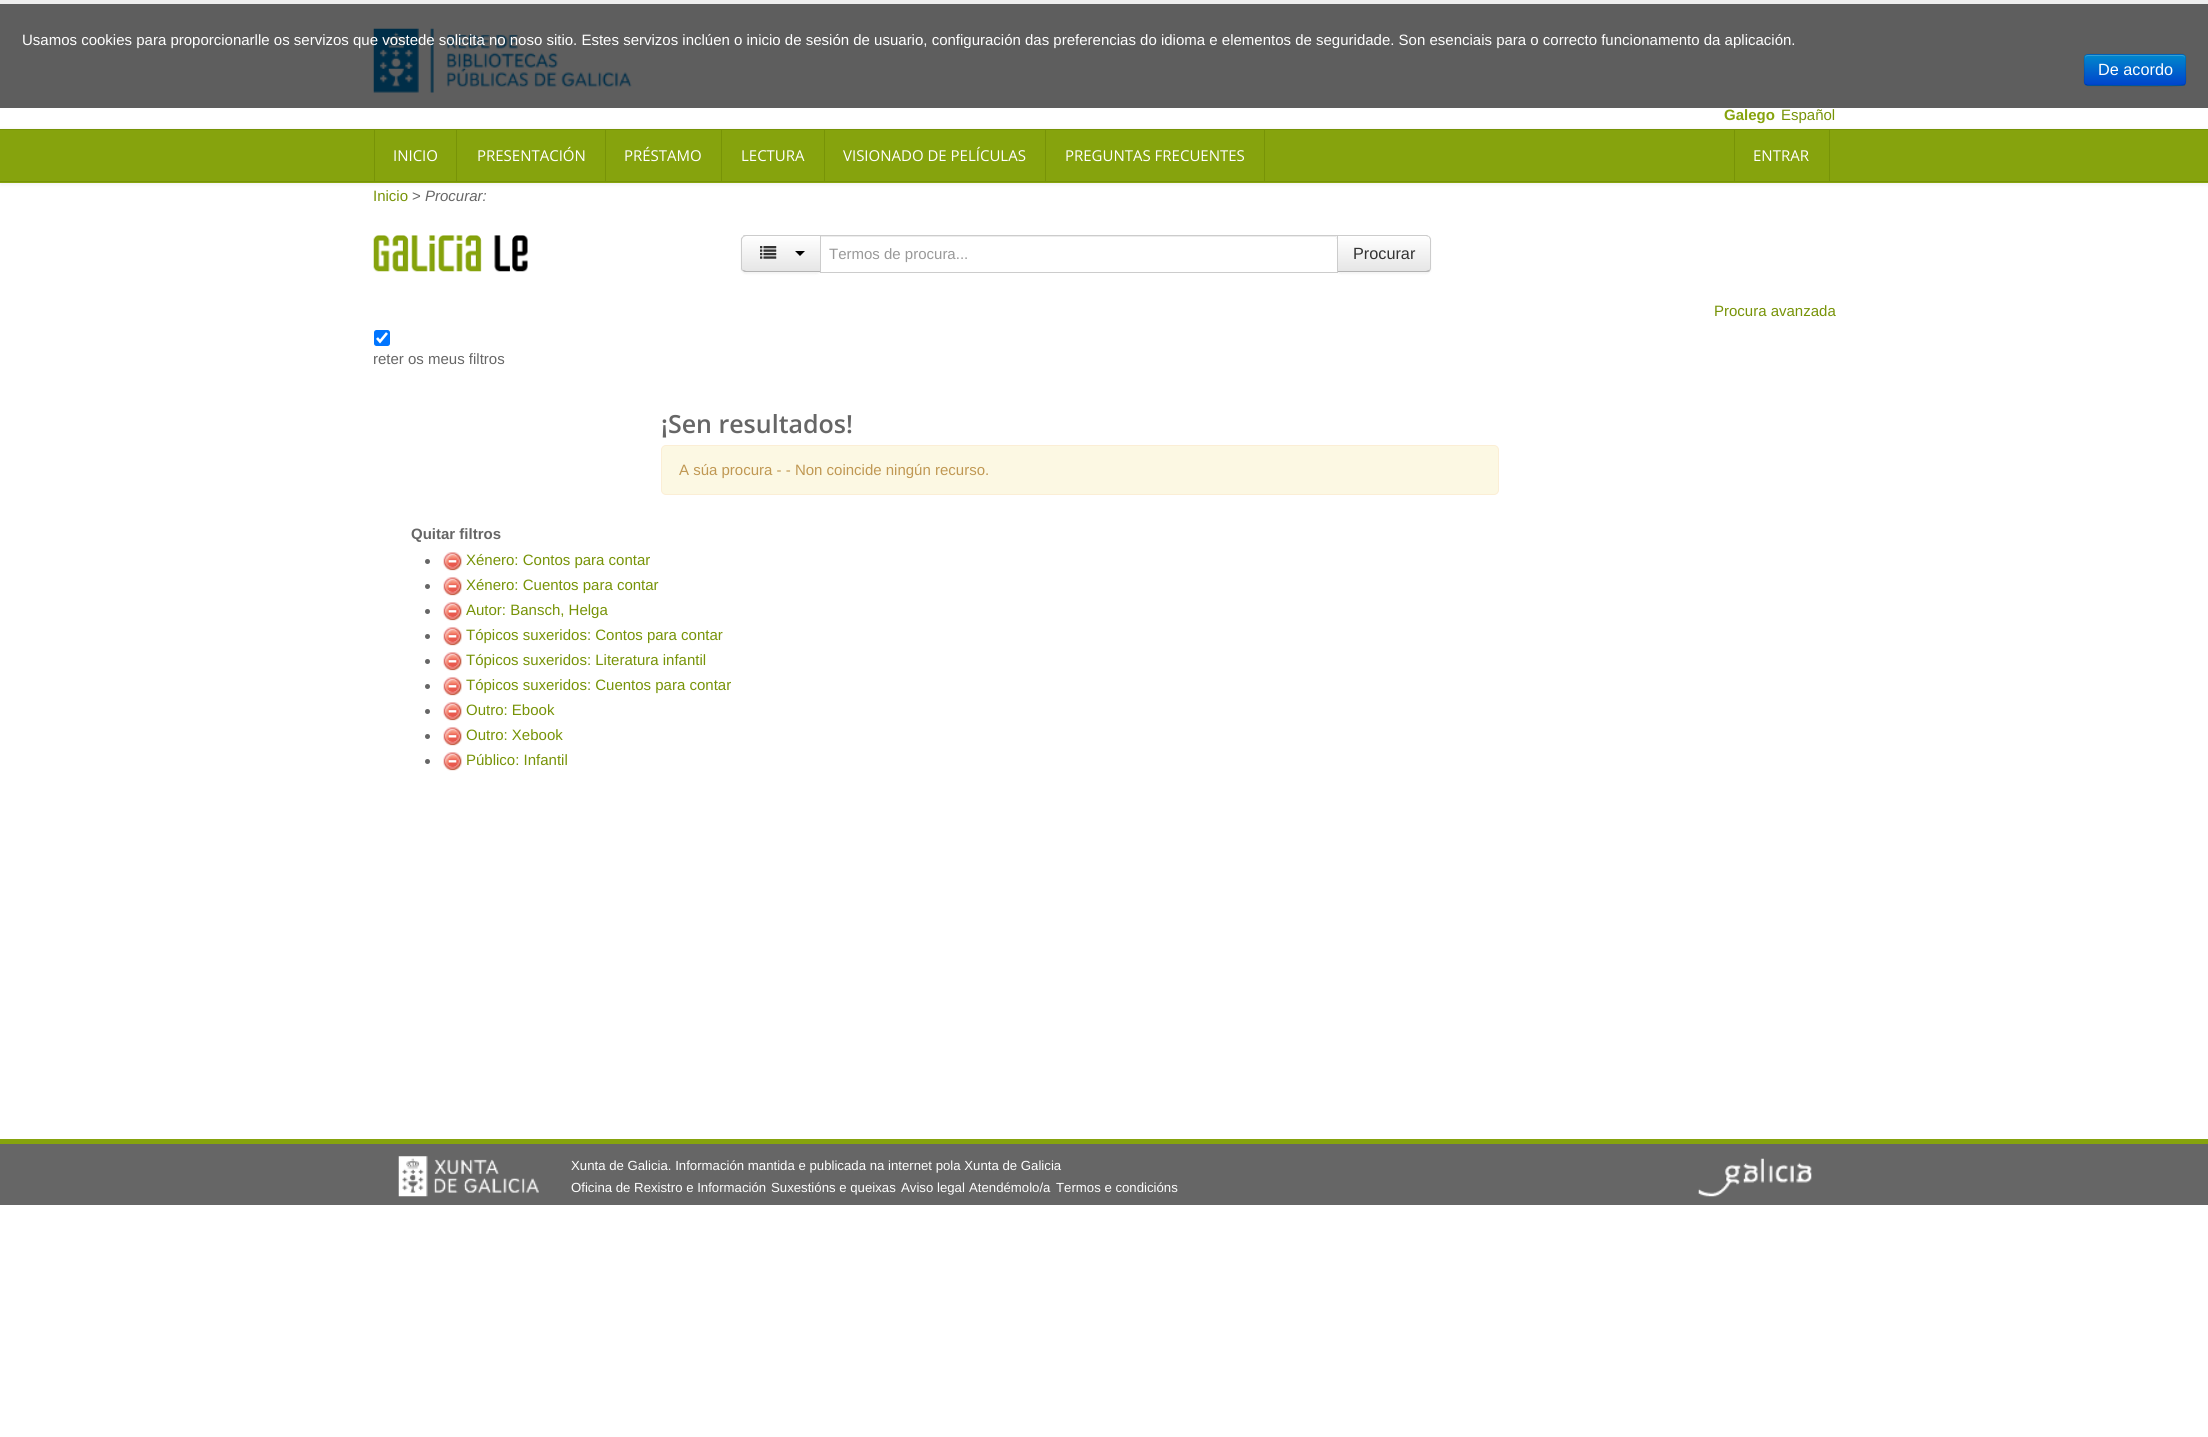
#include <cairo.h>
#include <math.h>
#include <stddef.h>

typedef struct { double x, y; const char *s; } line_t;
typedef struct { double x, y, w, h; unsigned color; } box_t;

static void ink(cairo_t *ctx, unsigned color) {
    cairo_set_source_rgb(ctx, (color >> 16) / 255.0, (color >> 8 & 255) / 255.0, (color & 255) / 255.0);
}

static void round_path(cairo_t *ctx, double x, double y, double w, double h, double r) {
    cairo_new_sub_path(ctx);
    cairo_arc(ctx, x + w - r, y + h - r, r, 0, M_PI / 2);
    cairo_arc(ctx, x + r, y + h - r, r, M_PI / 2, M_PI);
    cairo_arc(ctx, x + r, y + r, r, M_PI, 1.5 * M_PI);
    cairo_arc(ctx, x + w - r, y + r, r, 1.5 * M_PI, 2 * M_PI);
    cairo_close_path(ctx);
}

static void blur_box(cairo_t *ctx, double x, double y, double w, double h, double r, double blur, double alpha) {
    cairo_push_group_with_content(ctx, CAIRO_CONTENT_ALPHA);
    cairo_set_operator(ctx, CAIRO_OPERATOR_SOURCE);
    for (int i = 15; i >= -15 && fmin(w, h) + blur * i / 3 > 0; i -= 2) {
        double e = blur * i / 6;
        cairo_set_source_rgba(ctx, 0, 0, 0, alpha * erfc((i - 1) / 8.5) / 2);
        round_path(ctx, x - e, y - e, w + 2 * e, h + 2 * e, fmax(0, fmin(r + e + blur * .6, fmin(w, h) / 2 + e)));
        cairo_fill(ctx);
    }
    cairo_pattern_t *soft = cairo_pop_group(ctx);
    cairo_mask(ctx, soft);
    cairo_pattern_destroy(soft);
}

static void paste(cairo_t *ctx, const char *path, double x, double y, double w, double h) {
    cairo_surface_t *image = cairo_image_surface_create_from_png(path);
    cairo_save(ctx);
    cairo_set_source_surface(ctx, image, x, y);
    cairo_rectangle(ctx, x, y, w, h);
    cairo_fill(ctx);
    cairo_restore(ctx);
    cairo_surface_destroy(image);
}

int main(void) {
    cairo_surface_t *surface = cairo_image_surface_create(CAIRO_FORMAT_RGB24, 2208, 1437);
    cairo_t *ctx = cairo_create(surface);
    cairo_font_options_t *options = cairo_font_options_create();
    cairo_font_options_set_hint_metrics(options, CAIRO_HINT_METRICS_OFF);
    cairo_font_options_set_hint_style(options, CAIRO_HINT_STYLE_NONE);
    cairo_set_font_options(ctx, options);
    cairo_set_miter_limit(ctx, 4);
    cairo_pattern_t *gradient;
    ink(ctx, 0xFFFFFF);
    cairo_paint(ctx);
    ink(ctx, 0x5E5E5E);
    cairo_rectangle(ctx, 0, 4, 2208, 104);
    cairo_fill(ctx);
    ink(ctx, 0xEEEEEE);
    cairo_rectangle(ctx, 0, 0, 2208, 4);
    cairo_fill(ctx);
    paste(ctx, "media/1.png", 373, 28, 259, 65);
    cairo_select_font_face(ctx, "Liberation Sans", CAIRO_FONT_SLANT_NORMAL, CAIRO_FONT_WEIGHT_NORMAL);
    cairo_set_font_size(ctx, 15);
    ink(ctx, 0xFFFFFF);
    cairo_move_to(ctx, 22, 45);
    cairo_show_text(ctx, "Usamos cookies para proporcionarlle os servizos que vostede solicita no noso sitio. Estes servizos inclúen o inicio de sesión de usuario, configuración das preferencias do idioma e elementos de seguridade. Son esenciais para o correcto funcionamento da aplicación.");
    ink(ctx, 0x006DCC);
    round_path(ctx, 2084, 54, 102, 32, 4);
    cairo_fill(ctx);
    cairo_save(ctx);
    round_path(ctx, 2084, 54, 102, 32, 4);
    cairo_clip(ctx);
    gradient = cairo_pattern_create_linear(2135, 55, 2135, 85);
    cairo_pattern_add_color_stop_rgba(gradient, 0, 0, 0.533, 0.8, 1);
    cairo_pattern_add_color_stop_rgba(gradient, 1, 0, 0.267, 0.8, 1);
    cairo_set_source(ctx, gradient);
    cairo_pattern_destroy(gradient);
    cairo_rectangle(ctx, 2084, 55, 102, 30);
    cairo_fill(ctx);
    cairo_restore(ctx);
    ink(ctx, 0x339FD6);
    cairo_new_path(ctx);
    cairo_move_to(ctx, 2088, 56);
    cairo_line_to(ctx, 2182, 56);
    cairo_curve_to(ctx, 2184, 56, 2185, 57, 2185, 59);
    cairo_line_to(ctx, 2185, 58);
    cairo_curve_to(ctx, 2185, 56, 2184, 55, 2182, 55);
    cairo_line_to(ctx, 2088, 55);
    cairo_curve_to(ctx, 2086, 55, 2085, 56, 2085, 58);
    cairo_line_to(ctx, 2085, 59);
    cairo_curve_to(ctx, 2085, 57, 2086, 56, 2088, 56);
    cairo_close_path(ctx);
    cairo_fill(ctx);
    cairo_new_path(ctx);
    cairo_move_to(ctx, 2184.5, 84.5);
    cairo_line_to(ctx, 2184.5, 85);
    cairo_curve_to(ctx, 2182.5, 86.5, 2112, 85.5, 2103.5, 85.5);
    cairo_line_to(ctx, 2087.5, 85.5);
    cairo_line_to(ctx, 2085.5, 84.5);
    cairo_set_source_rgba(ctx, 0, 0, 0, 0.25);
    cairo_set_line_width(ctx, 1.2);
    cairo_stroke(ctx);
    cairo_new_path(ctx);
    cairo_move_to(ctx, 2085.5, 84.5);
    cairo_curve_to(ctx, 2083, 82.5, 2084.5, 76.5, 2084.5, 74);
    cairo_curve_to(ctx, 2084.5, 51, 2080, 54.5, 2103.5, 54.5);
    cairo_line_to(ctx, 2166.5, 54.5);
    cairo_curve_to(ctx, 2188.5, 54.5, 2185.5, 50.5, 2185.5, 70);
    cairo_curve_to(ctx, 2185.5, 73, 2187, 82.5, 2184.5, 84.5);
    cairo_set_source_rgba(ctx, 0, 0, 0, 0.1);
    cairo_stroke(ctx);
    cairo_set_font_size(ctx, 16.25);
    ink(ctx, 0xFFFFFF);
    cairo_move_to(ctx, 2098, 75);
    cairo_show_text(ctx, "De acordo");
    ink(ctx, 0x000000);
    blur_box(ctx, 0, 130, 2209, 54, 0, 2.5, 0.07);
    cairo_select_font_face(ctx, "Liberation Sans", CAIRO_FONT_SLANT_NORMAL, CAIRO_FONT_WEIGHT_BOLD);
    cairo_set_font_size(ctx, 15);
    ink(ctx, 0x86A30D);
    cairo_move_to(ctx, 1724, 120);
    cairo_show_text(ctx, "Galego");
    cairo_select_font_face(ctx, "Liberation Sans", CAIRO_FONT_SLANT_NORMAL, CAIRO_FONT_WEIGHT_NORMAL);
    ink(ctx, 0x779307);
    cairo_move_to(ctx, 1781, 120);
    cairo_show_text(ctx, "Español");
    {
        static const box_t items[] = {
            {0, 130, 2208, 53, 0x86A30D},
            {0, 129, 2208, 1, 0x779307},
            {0, 181, 2208, 1, 0x779307},
            {374, 130, 1, 51, 0x779307},
            {456, 130, 1, 51, 0x779307},
        };
        for (size_t i = 0; i < sizeof items / sizeof *items; i++) {
            ink(ctx, items[i].color);
            cairo_rectangle(ctx, items[i].x, items[i].y, items[i].w, items[i].h);
            cairo_fill(ctx);
        }
    }
    cairo_select_font_face(ctx, "Open Sans", CAIRO_FONT_SLANT_NORMAL, CAIRO_FONT_WEIGHT_NORMAL);
    ink(ctx, 0xFFFFFF);
    cairo_move_to(ctx, 393, 161);
    cairo_show_text(ctx, "INICIO");
    ink(ctx, 0x779307);
    cairo_rectangle(ctx, 605, 130, 1, 51);
    cairo_fill(ctx);
    ink(ctx, 0xFFFFFF);
    cairo_move_to(ctx, 477, 161);
    cairo_show_text(ctx, "PRESENTACIÓN");
    ink(ctx, 0x779307);
    cairo_rectangle(ctx, 721, 130, 1, 51);
    cairo_fill(ctx);
    ink(ctx, 0xFFFFFF);
    cairo_move_to(ctx, 624, 161);
    cairo_show_text(ctx, "PRÉSTAMO");
    ink(ctx, 0x779307);
    cairo_rectangle(ctx, 824, 130, 1, 51);
    cairo_fill(ctx);
    ink(ctx, 0xFFFFFF);
    cairo_move_to(ctx, 741, 161);
    cairo_show_text(ctx, "LECTURA");
    ink(ctx, 0x779307);
    cairo_rectangle(ctx, 1045, 130, 1, 51);
    cairo_fill(ctx);
    ink(ctx, 0xFFFFFF);
    cairo_move_to(ctx, 843, 161);
    cairo_show_text(ctx, "VISIONADO DE PELÍCULAS");
    ink(ctx, 0x779307);
    cairo_rectangle(ctx, 1264, 130, 1, 51);
    cairo_fill(ctx);
    ink(ctx, 0xFFFFFF);
    cairo_move_to(ctx, 1065, 161);
    cairo_show_text(ctx, "PREGUNTAS FRECUENTES");
    ink(ctx, 0x779307);
    cairo_rectangle(ctx, 1734, 130, 1, 51);
    cairo_fill(ctx);
    cairo_rectangle(ctx, 1829, 130, 1, 51);
    cairo_fill(ctx);
    ink(ctx, 0xFFFFFF);
    cairo_move_to(ctx, 1753, 161);
    cairo_show_text(ctx, "ENTRAR");
    cairo_select_font_face(ctx, "Liberation Sans", CAIRO_FONT_SLANT_NORMAL, CAIRO_FONT_WEIGHT_NORMAL);
    ink(ctx, 0x779307);
    cairo_move_to(ctx, 373, 201);
    cairo_show_text(ctx, "Inicio");
    ink(ctx, 0x666666);
    cairo_move_to(ctx, 412, 201);
    cairo_show_text(ctx, ">");
    cairo_select_font_face(ctx, "Liberation Sans", CAIRO_FONT_SLANT_ITALIC, CAIRO_FONT_WEIGHT_NORMAL);
    cairo_move_to(ctx, 425, 201);
    cairo_show_text(ctx, "Procurar:");
    paste(ctx, "media/2.png", 373, 235, 155, 37);
    ink(ctx, 0x000000);
    blur_box(ctx, 741, 236, 80, 38, 5, 1, 0.05);
    ink(ctx, 0xF5F5F5);
    cairo_new_path(ctx);
    cairo_move_to(ctx, 746, 235);
    cairo_line_to(ctx, 821, 235);
    cairo_line_to(ctx, 821, 273);
    cairo_line_to(ctx, 746, 273);
    cairo_curve_to(ctx, 743, 273, 741, 271, 741, 268);
    cairo_line_to(ctx, 741, 240);
    cairo_curve_to(ctx, 741, 237, 743, 235, 746, 235);
    cairo_close_path(ctx);
    cairo_fill(ctx);
    cairo_save(ctx);
    cairo_new_path(ctx);
    cairo_move_to(ctx, 746, 235);
    cairo_line_to(ctx, 821, 235);
    cairo_line_to(ctx, 821, 273);
    cairo_line_to(ctx, 746, 273);
    cairo_curve_to(ctx, 743, 273, 741, 271, 741, 268);
    cairo_line_to(ctx, 741, 240);
    cairo_curve_to(ctx, 741, 237, 743, 235, 746, 235);
    cairo_close_path(ctx);
    cairo_clip(ctx);
    gradient = cairo_pattern_create_linear(781, 236, 781, 271);
    cairo_pattern_add_color_stop_rgba(gradient, 0, 1, 1, 1, 1);
    cairo_pattern_add_color_stop_rgba(gradient, 1, 0.902, 0.902, 0.902, 1);
    cairo_set_source(ctx, gradient);
    cairo_pattern_destroy(gradient);
    cairo_rectangle(ctx, 741, 236, 79, 35);
    cairo_fill(ctx);
    cairo_restore(ctx);
    ink(ctx, 0xCCCCCC);
    cairo_new_path(ctx);
    cairo_move_to(ctx, 746, 235);
    cairo_curve_to(ctx, 745, 235, 743, 235, 743, 236);
    cairo_line_to(ctx, 743, 237);
    cairo_line_to(ctx, 746, 236);
    cairo_line_to(ctx, 820, 236);
    cairo_line_to(ctx, 821, 235);
    cairo_close_path(ctx);
    cairo_fill(ctx);
    ink(ctx, 0xB3B3B3);
    cairo_new_path(ctx);
    cairo_move_to(ctx, 821, 272);
    cairo_line_to(ctx, 746, 272);
    cairo_curve_to(ctx, 745, 272, 744, 272, 743, 271);
    cairo_line_to(ctx, 743, 270);
    cairo_line_to(ctx, 746, 271);
    cairo_line_to(ctx, 820, 271);
    cairo_close_path(ctx);
    cairo_fill(ctx);
    ink(ctx, 0xCCCCCC);
    cairo_new_path(ctx);
    cairo_move_to(ctx, 741, 238.5);
    cairo_line_to(ctx, 742.5, 236.5);
    cairo_line_to(ctx, 743.5, 237);
    cairo_curve_to(ctx, 742.5, 238, 742, 239, 742, 240);
    cairo_line_to(ctx, 742, 268);
    cairo_curve_to(ctx, 742, 269, 742.5, 270, 743.5, 270.5);
    cairo_line_to(ctx, 742.5, 271);
    cairo_line_to(ctx, 741, 269);
    cairo_close_path(ctx);
    cairo_fill(ctx);
    paste(ctx, "media/3.png", 760, 246, 17, 13);
    ink(ctx, 0x000000);
    cairo_new_path(ctx);
    cairo_move_to(ctx, 795, 251);
    cairo_line_to(ctx, 805, 251);
    cairo_line_to(ctx, 800, 256);
    cairo_close_path(ctx);
    cairo_fill(ctx);
    ink(ctx, 0x000000);
    blur_box(ctx, 1336, 236, 95, 38, 5, 1, 0.05);
    ink(ctx, 0xF5F5F5);
    cairo_new_path(ctx);
    cairo_move_to(ctx, 1336, 235);
    cairo_line_to(ctx, 1426, 235);
    cairo_curve_to(ctx, 1429, 235, 1431, 237, 1431, 240);
    cairo_line_to(ctx, 1431, 268);
    cairo_curve_to(ctx, 1431, 271, 1429, 273, 1426, 273);
    cairo_line_to(ctx, 1336, 273);
    cairo_close_path(ctx);
    cairo_fill(ctx);
    ink(ctx, 0xFFFFFF);
    cairo_rectangle(ctx, 821, 239, 516, 33);
    cairo_fill(ctx);
    ink(ctx, 0xECECEC);
    cairo_rectangle(ctx, 821, 236, 515, 1);
    cairo_fill(ctx);
    cairo_save(ctx);
    cairo_new_path(ctx);
    cairo_move_to(ctx, 1336, 235);
    cairo_line_to(ctx, 1426, 235);
    cairo_curve_to(ctx, 1429, 235, 1431, 237, 1431, 240);
    cairo_line_to(ctx, 1431, 268);
    cairo_curve_to(ctx, 1431, 271, 1429, 273, 1426, 273);
    cairo_line_to(ctx, 1336, 273);
    cairo_close_path(ctx);
    cairo_clip(ctx);
    gradient = cairo_pattern_create_linear(1384, 236, 1384, 271);
    cairo_pattern_add_color_stop_rgba(gradient, 0, 1, 1, 1, 1);
    cairo_pattern_add_color_stop_rgba(gradient, 1, 0.902, 0.902, 0.902, 1);
    cairo_set_source(ctx, gradient);
    cairo_pattern_destroy(gradient);
    cairo_rectangle(ctx, 1338, 236, 93, 35);
    cairo_fill(ctx);
    cairo_restore(ctx);
    ink(ctx, 0xCCCCCC);
    cairo_new_path(ctx);
    cairo_move_to(ctx, 1338, 236);
    cairo_line_to(ctx, 1426, 236);
    cairo_line_to(ctx, 1429, 237);
    cairo_line_to(ctx, 1430, 237);
    cairo_line_to(ctx, 1427, 235);
    cairo_line_to(ctx, 1336, 235);
    cairo_line_to(ctx, 1338, 237);
    cairo_close_path(ctx);
    cairo_fill(ctx);
    cairo_new_path(ctx);
    cairo_move_to(ctx, 1429.5, 236.5);
    cairo_curve_to(ctx, 1430.5, 237.5, 1431, 238.5, 1431, 240);
    cairo_line_to(ctx, 1431, 268);
    cairo_curve_to(ctx, 1431, 269, 1430.5, 270, 1429.5, 271);
    cairo_line_to(ctx, 1429, 270);
    cairo_curve_to(ctx, 1429.5, 269.5, 1430, 269, 1430, 268);
    cairo_line_to(ctx, 1430, 240);
    cairo_curve_to(ctx, 1430, 239, 1429.5, 238, 1429, 237.5);
    cairo_close_path(ctx);
    cairo_fill(ctx);
    ink(ctx, 0xB3B3B3);
    cairo_new_path(ctx);
    cairo_move_to(ctx, 1430, 271);
    cairo_curve_to(ctx, 1429, 272, 1427, 272, 1426, 272);
    cairo_line_to(ctx, 1337, 272);
    cairo_line_to(ctx, 1338, 271);
    cairo_line_to(ctx, 1426, 271);
    cairo_line_to(ctx, 1429, 270);
    cairo_close_path(ctx);
    cairo_fill(ctx);
    cairo_rectangle(ctx, 820.5, 235.5, 517, 37);
    ink(ctx, 0xCCCCCC);
    cairo_set_line_width(ctx, 1);
    cairo_stroke(ctx);
    cairo_select_font_face(ctx, "Liberation Sans", CAIRO_FONT_SLANT_NORMAL, CAIRO_FONT_WEIGHT_NORMAL);
    ink(ctx, 0x999999);
    cairo_move_to(ctx, 829, 259);
    cairo_show_text(ctx, "Termos de procura...");
    cairo_set_font_size(ctx, 16.25);
    ink(ctx, 0x333333);
    cairo_move_to(ctx, 1353, 259);
    cairo_show_text(ctx, "Procurar");
    cairo_set_font_size(ctx, 15);
    ink(ctx, 0x779307);
    cairo_move_to(ctx, 1714, 316);
    cairo_show_text(ctx, "Procura avanzada");
    ink(ctx, 0x0075FF);
    round_path(ctx, 374, 330, 16, 16, 2.5);
    cairo_fill(ctx);
    cairo_new_path(ctx);
    cairo_move_to(ctx, 377, 338);
    cairo_line_to(ctx, 380, 341.5);
    cairo_line_to(ctx, 387, 333);
    ink(ctx, 0xFFFFFF);
    cairo_set_line_width(ctx, 2.6);
    cairo_stroke(ctx);
    ink(ctx, 0x666666);
    cairo_move_to(ctx, 373, 364);
    cairo_show_text(ctx, "reter os meus filtros");
    cairo_select_font_face(ctx, "Open Sans SemiBold", CAIRO_FONT_SLANT_NORMAL, CAIRO_FONT_WEIGHT_NORMAL);
    cairo_set_font_size(ctx, 25);
    cairo_move_to(ctx, 661, 433);
    cairo_show_text(ctx, "¡Sen resultados!");
    ink(ctx, 0xFCF8E3);
    round_path(ctx, 661.5, 445.5, 837, 49, 4.5);
    cairo_fill_preserve(ctx);
    ink(ctx, 0xFBEED5);
    cairo_set_line_width(ctx, 1);
    cairo_stroke(ctx);
    cairo_select_font_face(ctx, "Liberation Sans", CAIRO_FONT_SLANT_NORMAL, CAIRO_FONT_WEIGHT_NORMAL);
    cairo_set_font_size(ctx, 15);
    ink(ctx, 0xC09853);
    cairo_move_to(ctx, 679, 475);
    cairo_show_text(ctx, "A súa procura - - Non coincide ningún recurso.");
    cairo_select_font_face(ctx, "Liberation Sans", CAIRO_FONT_SLANT_NORMAL, CAIRO_FONT_WEIGHT_BOLD);
    ink(ctx, 0x666666);
    cairo_move_to(ctx, 411, 539);
    cairo_show_text(ctx, "Quitar filtros");
    cairo_new_path(ctx);
    cairo_arc(ctx, 427.5, 561.5, 2.5, 0, 2 * M_PI);
    cairo_fill(ctx);
    paste(ctx, "media/4.png", 443, 552, 19, 19);
    cairo_select_font_face(ctx, "Liberation Sans", CAIRO_FONT_SLANT_NORMAL, CAIRO_FONT_WEIGHT_NORMAL);
    ink(ctx, 0x779307);
    cairo_move_to(ctx, 466, 565);
    cairo_show_text(ctx, "Xénero: Contos para contar");
    ink(ctx, 0x666666);
    cairo_new_path(ctx);
    cairo_arc(ctx, 427.5, 586.5, 2.5, 0, 2 * M_PI);
    cairo_fill(ctx);
    paste(ctx, "media/5.png", 443, 577, 19, 19);
    ink(ctx, 0x779307);
    cairo_move_to(ctx, 466, 590);
    cairo_show_text(ctx, "Xénero: Cuentos para contar");
    ink(ctx, 0x666666);
    cairo_new_path(ctx);
    cairo_arc(ctx, 427.5, 611.5, 2.5, 0, 2 * M_PI);
    cairo_fill(ctx);
    paste(ctx, "media/4.png", 443, 602, 19, 19);
    ink(ctx, 0x779307);
    cairo_move_to(ctx, 466, 615);
    cairo_show_text(ctx, "Autor: Bansch, Helga");
    ink(ctx, 0x666666);
    cairo_new_path(ctx);
    cairo_arc(ctx, 427.5, 636.5, 2.5, 0, 2 * M_PI);
    cairo_fill(ctx);
    paste(ctx, "media/4.png", 443, 627, 19, 19);
    ink(ctx, 0x779307);
    cairo_move_to(ctx, 466, 640);
    cairo_show_text(ctx, "Tópicos suxeridos: Contos para contar");
    ink(ctx, 0x666666);
    cairo_new_path(ctx);
    cairo_arc(ctx, 427.5, 661.5, 2.5, 0, 2 * M_PI);
    cairo_fill(ctx);
    paste(ctx, "media/4.png", 443, 652, 19, 19);
    ink(ctx, 0x779307);
    cairo_move_to(ctx, 466, 665);
    cairo_show_text(ctx, "Tópicos suxeridos: Literatura infantil");
    ink(ctx, 0x666666);
    cairo_new_path(ctx);
    cairo_arc(ctx, 427.5, 686.5, 2.5, 0, 2 * M_PI);
    cairo_fill(ctx);
    paste(ctx, "media/4.png", 443, 677, 19, 19);
    ink(ctx, 0x779307);
    cairo_move_to(ctx, 466, 690);
    cairo_show_text(ctx, "Tópicos suxeridos: Cuentos para contar");
    ink(ctx, 0x666666);
    cairo_new_path(ctx);
    cairo_arc(ctx, 427.5, 711.5, 2.5, 0, 2 * M_PI);
    cairo_fill(ctx);
    paste(ctx, "media/4.png", 443, 702, 19, 19);
    ink(ctx, 0x779307);
    cairo_move_to(ctx, 466, 715);
    cairo_show_text(ctx, "Outro: Ebook");
    ink(ctx, 0x666666);
    cairo_new_path(ctx);
    cairo_arc(ctx, 427.5, 736.5, 2.5, 0, 2 * M_PI);
    cairo_fill(ctx);
    paste(ctx, "media/4.png", 443, 727, 19, 19);
    ink(ctx, 0x779307);
    cairo_move_to(ctx, 466, 740);
    cairo_show_text(ctx, "Outro: Xebook");
    ink(ctx, 0x666666);
    cairo_new_path(ctx);
    cairo_arc(ctx, 427.5, 761.5, 2.5, 0, 2 * M_PI);
    cairo_fill(ctx);
    paste(ctx, "media/4.png", 443, 752, 19, 19);
    ink(ctx, 0x779307);
    cairo_move_to(ctx, 466, 765);
    cairo_show_text(ctx, "Público: Infantil");
    ink(ctx, 0x666666);
    cairo_rectangle(ctx, 0, 1144, 2208, 61);
    cairo_fill(ctx);
    ink(ctx, 0x86A30D);
    cairo_rectangle(ctx, 0, 1139, 2208, 5);
    cairo_fill(ctx);
    paste(ctx, "media/6.png", 398, 1156, 141, 41);
    cairo_set_font_size(ctx, 13.2);
    ink(ctx, 0xFFFFFF);
    {
        static const line_t items[] = {
            {571, 1170, "Xunta de Galicia. Información mantida e publicada na internet pola Xunta de Galicia"},
            {571, 1192, "Oficina de Rexistro e Información"},
            {771, 1192, "Suxestións e queixas"},
            {901, 1192, "Aviso legal"},
            {969, 1192, "Atendémolo/a"},
            {1056, 1192, "Termos e condicións"},
        };
        for (size_t i = 0; i < sizeof items / sizeof *items; i++) {
            cairo_move_to(ctx, items[i].x, items[i].y);
            cairo_show_text(ctx, items[i].s);
        }
    }
    paste(ctx, "media/7.png", 1698, 1158, 114, 39);
    cairo_surface_write_to_png(surface, "image.png");
    cairo_font_options_destroy(options);
    cairo_destroy(ctx);
    cairo_surface_destroy(surface);
    return 0;
}
